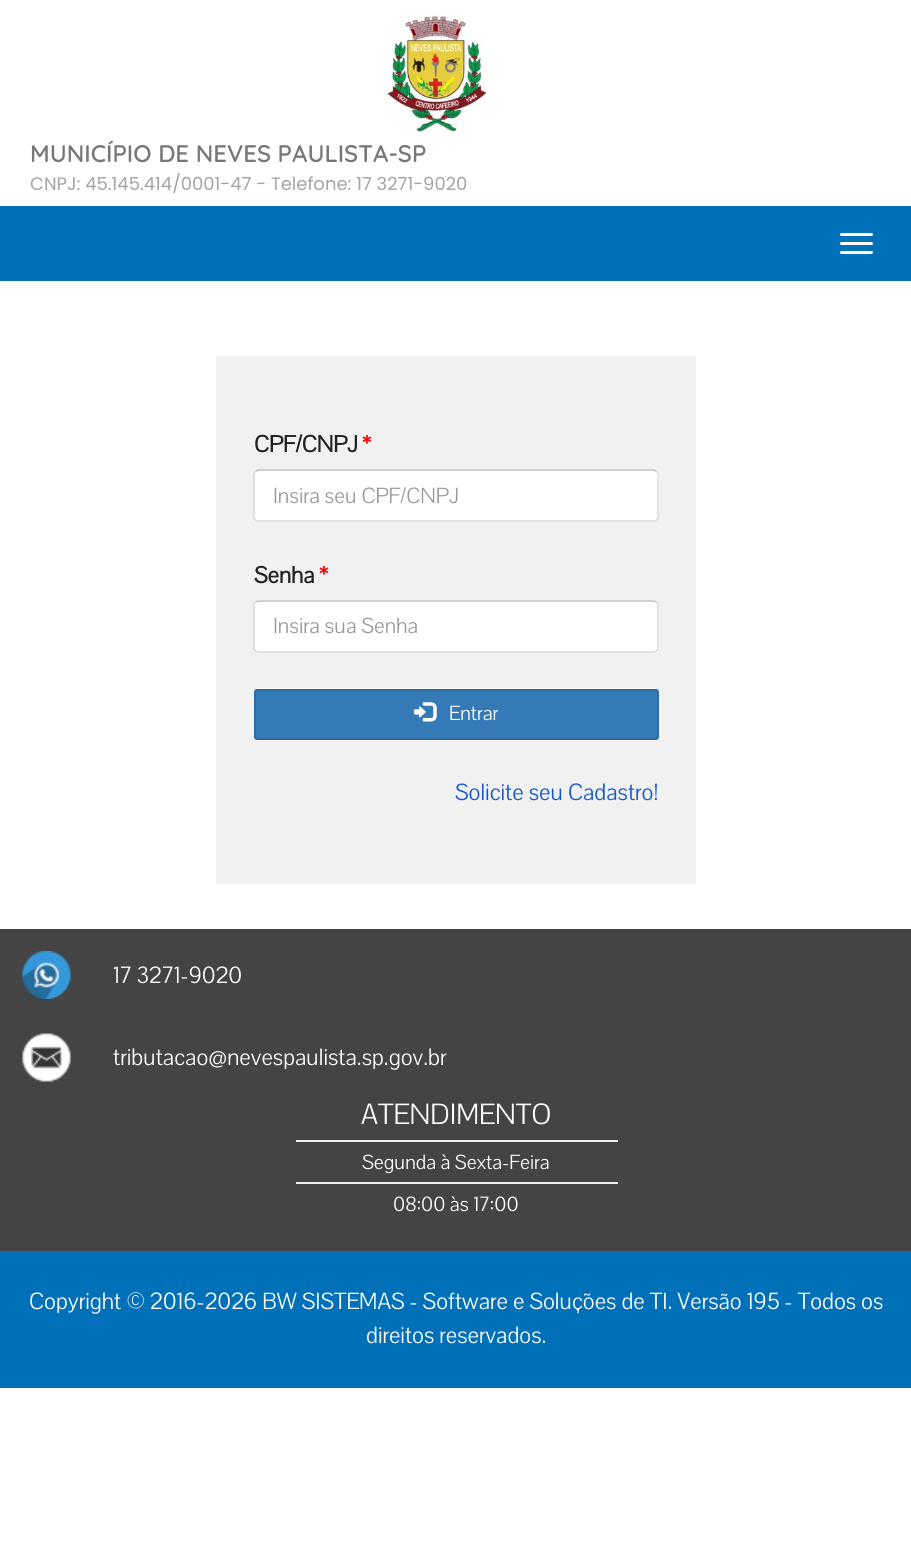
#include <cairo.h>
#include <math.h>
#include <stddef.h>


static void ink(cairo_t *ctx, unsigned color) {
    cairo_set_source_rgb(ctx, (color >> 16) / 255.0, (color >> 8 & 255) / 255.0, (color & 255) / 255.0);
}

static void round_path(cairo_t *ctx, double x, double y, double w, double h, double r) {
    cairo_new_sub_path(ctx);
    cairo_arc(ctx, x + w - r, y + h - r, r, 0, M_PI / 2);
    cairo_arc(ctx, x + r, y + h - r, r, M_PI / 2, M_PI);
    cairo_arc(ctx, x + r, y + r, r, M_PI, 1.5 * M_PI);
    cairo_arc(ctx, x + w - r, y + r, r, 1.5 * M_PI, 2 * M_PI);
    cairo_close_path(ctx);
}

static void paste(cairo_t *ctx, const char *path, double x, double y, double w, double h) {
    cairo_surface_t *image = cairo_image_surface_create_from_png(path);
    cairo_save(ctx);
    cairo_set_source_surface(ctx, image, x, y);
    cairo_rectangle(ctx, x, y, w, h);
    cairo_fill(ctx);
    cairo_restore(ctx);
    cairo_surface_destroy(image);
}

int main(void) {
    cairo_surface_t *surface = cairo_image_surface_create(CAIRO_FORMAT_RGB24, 911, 1560);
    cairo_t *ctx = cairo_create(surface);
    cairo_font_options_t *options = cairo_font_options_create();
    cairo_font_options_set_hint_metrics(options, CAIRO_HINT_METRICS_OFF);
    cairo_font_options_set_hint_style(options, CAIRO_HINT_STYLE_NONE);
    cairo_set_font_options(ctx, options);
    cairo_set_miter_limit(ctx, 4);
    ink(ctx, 0xFFFFFF);
    cairo_paint(ctx);
    paste(ctx, "media/1.png", 384, 15, 103, 117);
    cairo_select_font_face(ctx, "Quicksand SemiBold", CAIRO_FONT_SLANT_NORMAL, CAIRO_FONT_WEIGHT_NORMAL);
    cairo_set_font_size(ctx, 24);
    ink(ctx, 0x777777);
    cairo_move_to(ctx, 30, 162);
    cairo_show_text(ctx, "MUNICÍPIO DE NEVES PAULISTA-SP");
    cairo_select_font_face(ctx, "Poppins", CAIRO_FONT_SLANT_NORMAL, CAIRO_FONT_WEIGHT_NORMAL);
    cairo_set_font_size(ctx, 18);
    ink(ctx, 0xA4A4A4);
    cairo_move_to(ctx, 30, 190);
    cairo_show_text(ctx, "CNPJ: 45.145.414/0001-47 - Telefone: 17 3271-9020");
    ink(ctx, 0x0070B9);
    cairo_rectangle(ctx, 0, 206, 911, 75);
    cairo_fill(ctx);
    ink(ctx, 0xFFFFFF);
    round_path(ctx, 840, 233, 33, 3, 1.5);
    cairo_fill(ctx);
    round_path(ctx, 840, 242, 33, 3, 1.5);
    cairo_fill(ctx);
    round_path(ctx, 840, 251, 33, 3, 1.5);
    cairo_fill(ctx);
    ink(ctx, 0xF1F1F1);
    cairo_rectangle(ctx, 216, 356, 480, 528);
    cairo_fill(ctx);
    cairo_select_font_face(ctx, "Pavanam", CAIRO_FONT_SLANT_NORMAL, CAIRO_FONT_WEIGHT_BOLD);
    cairo_set_font_size(ctx, 24);
    ink(ctx, 0x222222);
    cairo_move_to(ctx, 254, 452);
    cairo_show_text(ctx, "CPF/CNPJ");
    ink(ctx, 0xFF0000);
    cairo_move_to(ctx, 362, 452);
    cairo_show_text(ctx, "*");
    ink(ctx, 0xFFFFFF);
    round_path(ctx, 254, 470, 405, 52, 5);
    cairo_fill(ctx);
    cairo_new_path(ctx);
    cairo_move_to(ctx, 255.5, 471.5);
    cairo_line_to(ctx, 258, 470);
    cairo_line_to(ctx, 654, 470);
    cairo_line_to(ctx, 656.5, 471.5);
    ink(ctx, 0xC0C0C0);
    cairo_set_line_width(ctx, 1.5);
    cairo_stroke(ctx);
    cairo_new_path(ctx);
    cairo_move_to(ctx, 656.5, 471.5);
    cairo_curve_to(ctx, 657.5, 472, 658, 473, 658, 474);
    cairo_line_to(ctx, 658, 517.5);
    cairo_curve_to(ctx, 658, 518.5, 657.5, 519.5, 656.5, 520);
    cairo_curve_to(ctx, 656, 521, 655, 521, 654, 521);
    cairo_line_to(ctx, 258, 521);
    cairo_curve_to(ctx, 257, 521, 256, 521, 255.5, 520);
    cairo_curve_to(ctx, 254.5, 519.5, 254, 518.5, 254, 517.5);
    cairo_line_to(ctx, 254, 474);
    cairo_curve_to(ctx, 254, 473, 254.5, 472, 255.5, 471.5);
    ink(ctx, 0xD9D9D9);
    cairo_stroke(ctx);
    cairo_select_font_face(ctx, "Pavanam", CAIRO_FONT_SLANT_NORMAL, CAIRO_FONT_WEIGHT_NORMAL);
    cairo_set_font_size(ctx, 22.5);
    ink(ctx, 0x999999);
    cairo_move_to(ctx, 273, 503);
    cairo_show_text(ctx, "Insira seu CPF/CNPJ");
    cairo_select_font_face(ctx, "Pavanam", CAIRO_FONT_SLANT_NORMAL, CAIRO_FONT_WEIGHT_BOLD);
    cairo_set_font_size(ctx, 24);
    ink(ctx, 0x222222);
    cairo_move_to(ctx, 254, 583);
    cairo_show_text(ctx, "Senha");
    ink(ctx, 0xFF0000);
    cairo_move_to(ctx, 319, 583);
    cairo_show_text(ctx, "*");
    ink(ctx, 0xFFFFFF);
    round_path(ctx, 254, 600, 405, 53, 5);
    cairo_fill(ctx);
    cairo_new_path(ctx);
    cairo_move_to(ctx, 255.5, 602);
    cairo_line_to(ctx, 258, 601);
    cairo_line_to(ctx, 654, 601);
    cairo_line_to(ctx, 656.5, 602);
    ink(ctx, 0xC0C0C0);
    cairo_stroke(ctx);
    cairo_new_path(ctx);
    cairo_move_to(ctx, 656.5, 602);
    cairo_curve_to(ctx, 657.5, 602.5, 658, 603.5, 658, 604.5);
    cairo_line_to(ctx, 658, 648);
    cairo_curve_to(ctx, 658, 649, 657.5, 650, 656.5, 650.5);
    cairo_curve_to(ctx, 656, 651.5, 655, 652, 654, 652);
    cairo_line_to(ctx, 258, 652);
    cairo_curve_to(ctx, 257, 652, 256, 651.5, 255.5, 650.5);
    cairo_curve_to(ctx, 254.5, 650, 254, 649, 254, 648);
    cairo_line_to(ctx, 254, 604.5);
    cairo_curve_to(ctx, 254, 603.5, 254.5, 602.5, 255.5, 602);
    ink(ctx, 0xD9D9D9);
    cairo_stroke(ctx);
    cairo_select_font_face(ctx, "Pavanam", CAIRO_FONT_SLANT_NORMAL, CAIRO_FONT_WEIGHT_NORMAL);
    cairo_set_font_size(ctx, 22.5);
    ink(ctx, 0x999999);
    cairo_move_to(ctx, 273, 633);
    cairo_show_text(ctx, "Insira sua Senha");
    ink(ctx, 0x337AB7);
    round_path(ctx, 255, 690, 403, 49, 2);
    cairo_fill_preserve(ctx);
    ink(ctx, 0x2E6DA4);
    cairo_set_line_width(ctx, 2);
    cairo_stroke(ctx);
    paste(ctx, "media/2.png", 414, 702, 23, 20);
    cairo_set_font_size(ctx, 21);
    ink(ctx, 0xFFFFFF);
    cairo_move_to(ctx, 449, 720);
    cairo_show_text(ctx, "Entrar");
    cairo_set_font_size(ctx, 24);
    ink(ctx, 0x1155CC);
    cairo_move_to(ctx, 455, 800);
    cairo_show_text(ctx, "Solicite seu Cadastro!");
    ink(ctx, 0x444444);
    cairo_rectangle(ctx, 0, 929, 911, 322);
    cairo_fill(ctx);
    paste(ctx, "media/3.png", 22, 951, 49, 48);
    ink(ctx, 0xFFFFFF);
    cairo_move_to(ctx, 113, 983);
    cairo_show_text(ctx, "17 3271-9020");
    paste(ctx, "media/4.png", 22, 1033, 49, 49);
    cairo_move_to(ctx, 113, 1065);
    cairo_show_text(ctx, "tributacao@nevespaulista.sp.gov.br");
    cairo_set_font_size(ctx, 30);
    cairo_move_to(ctx, 361, 1124);
    cairo_show_text(ctx, "ATENDIMENTO");
    ink(ctx, 0xEEEEEE);
    cairo_rectangle(ctx, 296, 1140, 322, 2);
    cairo_fill(ctx);
    cairo_set_font_size(ctx, 21);
    ink(ctx, 0xFFFFFF);
    cairo_move_to(ctx, 362, 1169);
    cairo_show_text(ctx, "Segunda à Sexta-Feira");
    ink(ctx, 0xEEEEEE);
    cairo_rectangle(ctx, 296, 1182, 322, 2);
    cairo_fill(ctx);
    ink(ctx, 0xFFFFFF);
    cairo_move_to(ctx, 393, 1211);
    cairo_show_text(ctx, "08:00 às 17:00");
    ink(ctx, 0x0070B9);
    cairo_rectangle(ctx, 0, 1251, 911, 137);
    cairo_fill(ctx);
    cairo_set_font_size(ctx, 24);
    ink(ctx, 0xFFFFFF);
    cairo_move_to(ctx, 29, 1309);
    cairo_show_text(ctx, "Copyright © 2016-2026 BW SISTEMAS - Software e Soluções de TI. Versão 195 - Todos os");
    cairo_move_to(ctx, 366, 1343);
    cairo_show_text(ctx, "direitos reservados.");
    cairo_surface_write_to_png(surface, "image.png");
    cairo_font_options_destroy(options);
    cairo_destroy(ctx);
    cairo_surface_destroy(surface);
    return 0;
}
